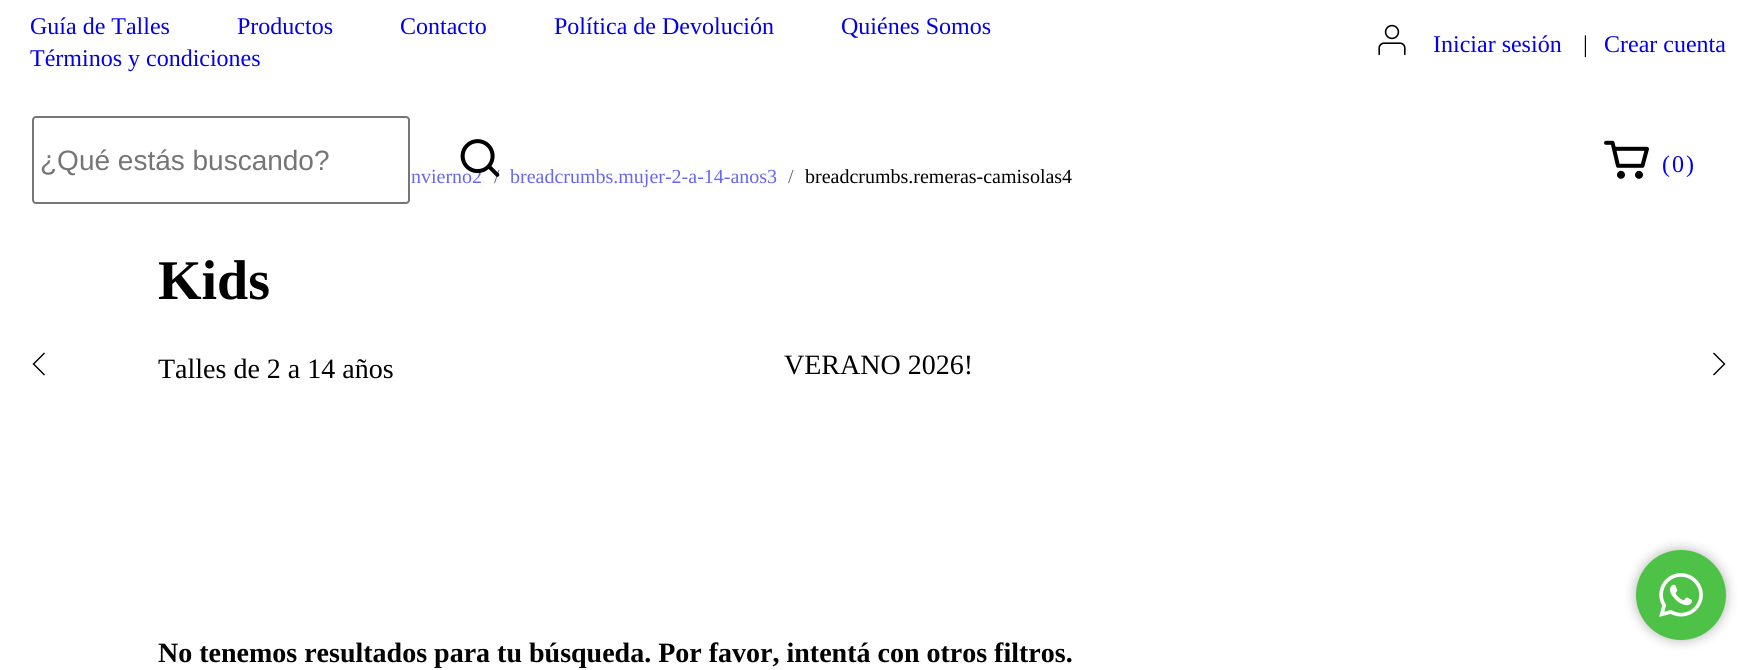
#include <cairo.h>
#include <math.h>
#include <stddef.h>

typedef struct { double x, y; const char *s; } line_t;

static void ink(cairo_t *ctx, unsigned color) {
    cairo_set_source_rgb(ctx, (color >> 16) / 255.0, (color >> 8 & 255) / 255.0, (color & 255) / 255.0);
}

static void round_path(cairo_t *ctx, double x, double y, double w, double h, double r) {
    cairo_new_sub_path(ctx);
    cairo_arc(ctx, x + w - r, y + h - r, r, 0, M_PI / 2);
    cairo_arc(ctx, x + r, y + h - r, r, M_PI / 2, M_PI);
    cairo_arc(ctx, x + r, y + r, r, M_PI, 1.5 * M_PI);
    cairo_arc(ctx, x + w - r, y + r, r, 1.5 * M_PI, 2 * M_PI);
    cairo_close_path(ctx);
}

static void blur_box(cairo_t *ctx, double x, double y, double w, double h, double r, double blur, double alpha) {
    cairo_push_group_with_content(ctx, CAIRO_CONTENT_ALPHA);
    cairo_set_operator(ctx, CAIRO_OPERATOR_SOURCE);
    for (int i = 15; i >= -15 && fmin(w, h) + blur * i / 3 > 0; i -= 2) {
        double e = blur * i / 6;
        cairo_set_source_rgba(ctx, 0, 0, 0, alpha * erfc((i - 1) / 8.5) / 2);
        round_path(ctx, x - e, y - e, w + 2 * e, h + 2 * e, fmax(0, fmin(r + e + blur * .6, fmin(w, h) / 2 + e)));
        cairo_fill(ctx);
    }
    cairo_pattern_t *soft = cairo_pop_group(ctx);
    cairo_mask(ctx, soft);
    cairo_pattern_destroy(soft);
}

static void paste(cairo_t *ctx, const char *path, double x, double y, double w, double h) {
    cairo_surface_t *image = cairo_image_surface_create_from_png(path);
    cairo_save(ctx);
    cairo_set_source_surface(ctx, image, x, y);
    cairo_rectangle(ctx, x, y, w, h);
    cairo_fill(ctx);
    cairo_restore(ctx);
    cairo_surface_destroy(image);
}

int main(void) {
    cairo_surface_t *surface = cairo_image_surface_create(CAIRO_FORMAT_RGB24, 1755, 670);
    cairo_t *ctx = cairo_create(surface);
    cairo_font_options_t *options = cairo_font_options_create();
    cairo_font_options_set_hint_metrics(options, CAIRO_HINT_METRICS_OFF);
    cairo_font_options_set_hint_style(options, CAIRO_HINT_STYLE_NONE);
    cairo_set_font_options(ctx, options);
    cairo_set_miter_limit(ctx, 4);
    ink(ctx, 0xFFFFFF);
    cairo_paint(ctx);
    cairo_select_font_face(ctx, "Liberation Serif", CAIRO_FONT_SLANT_NORMAL, CAIRO_FONT_WEIGHT_NORMAL);
    cairo_set_font_size(ctx, 24);
    ink(ctx, 0x0000EE);
    {
        static const line_t items[] = {
            {30, 34, "Guía de Talles"},
            {237, 34, "Productos"},
            {400, 34, "Contacto"},
            {554, 34, "Política de Devolución"},
            {841, 34, "Quiénes Somos"},
            {30, 66, "Términos y condiciones"},
        };
        for (size_t i = 0; i < sizeof items / sizeof *items; i++) {
            cairo_move_to(ctx, items[i].x, items[i].y);
            cairo_show_text(ctx, items[i].s);
        }
    }
    paste(ctx, "media/1.png", 1378, 24, 28, 32);
    cairo_move_to(ctx, 1433, 52);
    cairo_show_text(ctx, "Iniciar sesión");
    ink(ctx, 0x000000);
    cairo_move_to(ctx, 1583, 52);
    cairo_show_text(ctx, "|");
    ink(ctx, 0x0000EE);
    cairo_move_to(ctx, 1604, 52);
    cairo_show_text(ctx, "Crear cuenta");
    round_path(ctx, 33, 117, 376, 86, 3);
    ink(ctx, 0x767676);
    cairo_stroke(ctx);
    cairo_select_font_face(ctx, "Liberation Sans", CAIRO_FONT_SLANT_NORMAL, CAIRO_FONT_WEIGHT_NORMAL);
    cairo_set_font_size(ctx, 28);
    ink(ctx, 0x757575);
    cairo_move_to(ctx, 40, 170);
    cairo_show_text(ctx, "¿Qué estás buscando?");
    cairo_select_font_face(ctx, "Liberation Serif", CAIRO_FONT_SLANT_NORMAL, CAIRO_FONT_WEIGHT_NORMAL);
    cairo_set_font_size(ctx, 20);
    ink(ctx, 0x6666F5);
    cairo_move_to(ctx, 411, 183);
    cairo_show_text(ctx, "nvierno2");
    ink(ctx, 0x666666);
    cairo_move_to(ctx, 494, 183);
    cairo_show_text(ctx, "/");
    paste(ctx, "media/2.png", 460, 139, 40, 38);
    paste(ctx, "media/3.png", 1604, 140, 45, 39);
    cairo_set_font_size(ctx, 24);
    ink(ctx, 0x0000EE);
    {
        static const line_t items[] = {
            {1662, 172, "("},
            {1672, 172, "0"},
            {1686, 172, ")"},
        };
        for (size_t i = 0; i < sizeof items / sizeof *items; i++) {
            cairo_move_to(ctx, items[i].x, items[i].y);
            cairo_show_text(ctx, items[i].s);
        }
    }
    ink(ctx, 0x000000);
    cairo_new_path(ctx);
    cairo_move_to(ctx, 45, 374.5);
    cairo_line_to(ctx, 44, 375.5);
    cairo_line_to(ctx, 32.5, 364);
    cairo_line_to(ctx, 44, 352.5);
    cairo_line_to(ctx, 45, 353.5);
    cairo_line_to(ctx, 34.5, 364);
    cairo_close_path(ctx);
    cairo_fill(ctx);
    cairo_set_font_size(ctx, 28);
    cairo_move_to(ctx, 784, 374);
    cairo_show_text(ctx, "VERANO 2026!");
    cairo_new_path(ctx);
    cairo_move_to(ctx, 1723.5, 364);
    cairo_line_to(ctx, 1713, 353.5);
    cairo_line_to(ctx, 1714, 352.5);
    cairo_line_to(ctx, 1725.5, 364);
    cairo_line_to(ctx, 1714, 375.5);
    cairo_line_to(ctx, 1713, 374.5);
    cairo_close_path(ctx);
    cairo_fill(ctx);
    cairo_set_font_size(ctx, 20);
    ink(ctx, 0x6666F5);
    cairo_move_to(ctx, 510, 183);
    cairo_show_text(ctx, "breadcrumbs.mujer-2-a-14-anos3");
    ink(ctx, 0x666666);
    cairo_move_to(ctx, 788, 183);
    cairo_show_text(ctx, "/");
    ink(ctx, 0x000000);
    cairo_move_to(ctx, 805, 183);
    cairo_show_text(ctx, "breadcrumbs.remeras-camisolas4");
    cairo_select_font_face(ctx, "Liberation Serif", CAIRO_FONT_SLANT_NORMAL, CAIRO_FONT_WEIGHT_BOLD);
    cairo_set_font_size(ctx, 56);
    cairo_move_to(ctx, 158, 299);
    cairo_show_text(ctx, "Kids");
    cairo_select_font_face(ctx, "Liberation Serif", CAIRO_FONT_SLANT_NORMAL, CAIRO_FONT_WEIGHT_NORMAL);
    cairo_set_font_size(ctx, 28);
    cairo_move_to(ctx, 158, 378);
    cairo_show_text(ctx, "Talles de 2 a 14 años");
    cairo_select_font_face(ctx, "Liberation Serif", CAIRO_FONT_SLANT_NORMAL, CAIRO_FONT_WEIGHT_BOLD);
    cairo_move_to(ctx, 158, 662);
    cairo_show_text(ctx, "No tenemos resultados para tu búsqueda. Por favor, intentá con otros filtros.");
    ink(ctx, 0x000000);
    blur_box(ctx, 1636, 550, 90, 90, 45, 6, 0.3);
    ink(ctx, 0x4DC247);
    cairo_arc(ctx, 1681, 595, 45, 0, 2 * M_PI);
    cairo_fill(ctx);
    paste(ctx, "media/4.png", 1659, 573, 44, 44);
    cairo_surface_write_to_png(surface, "image.png");
    cairo_font_options_destroy(options);
    cairo_destroy(ctx);
    cairo_surface_destroy(surface);
    return 0;
}
